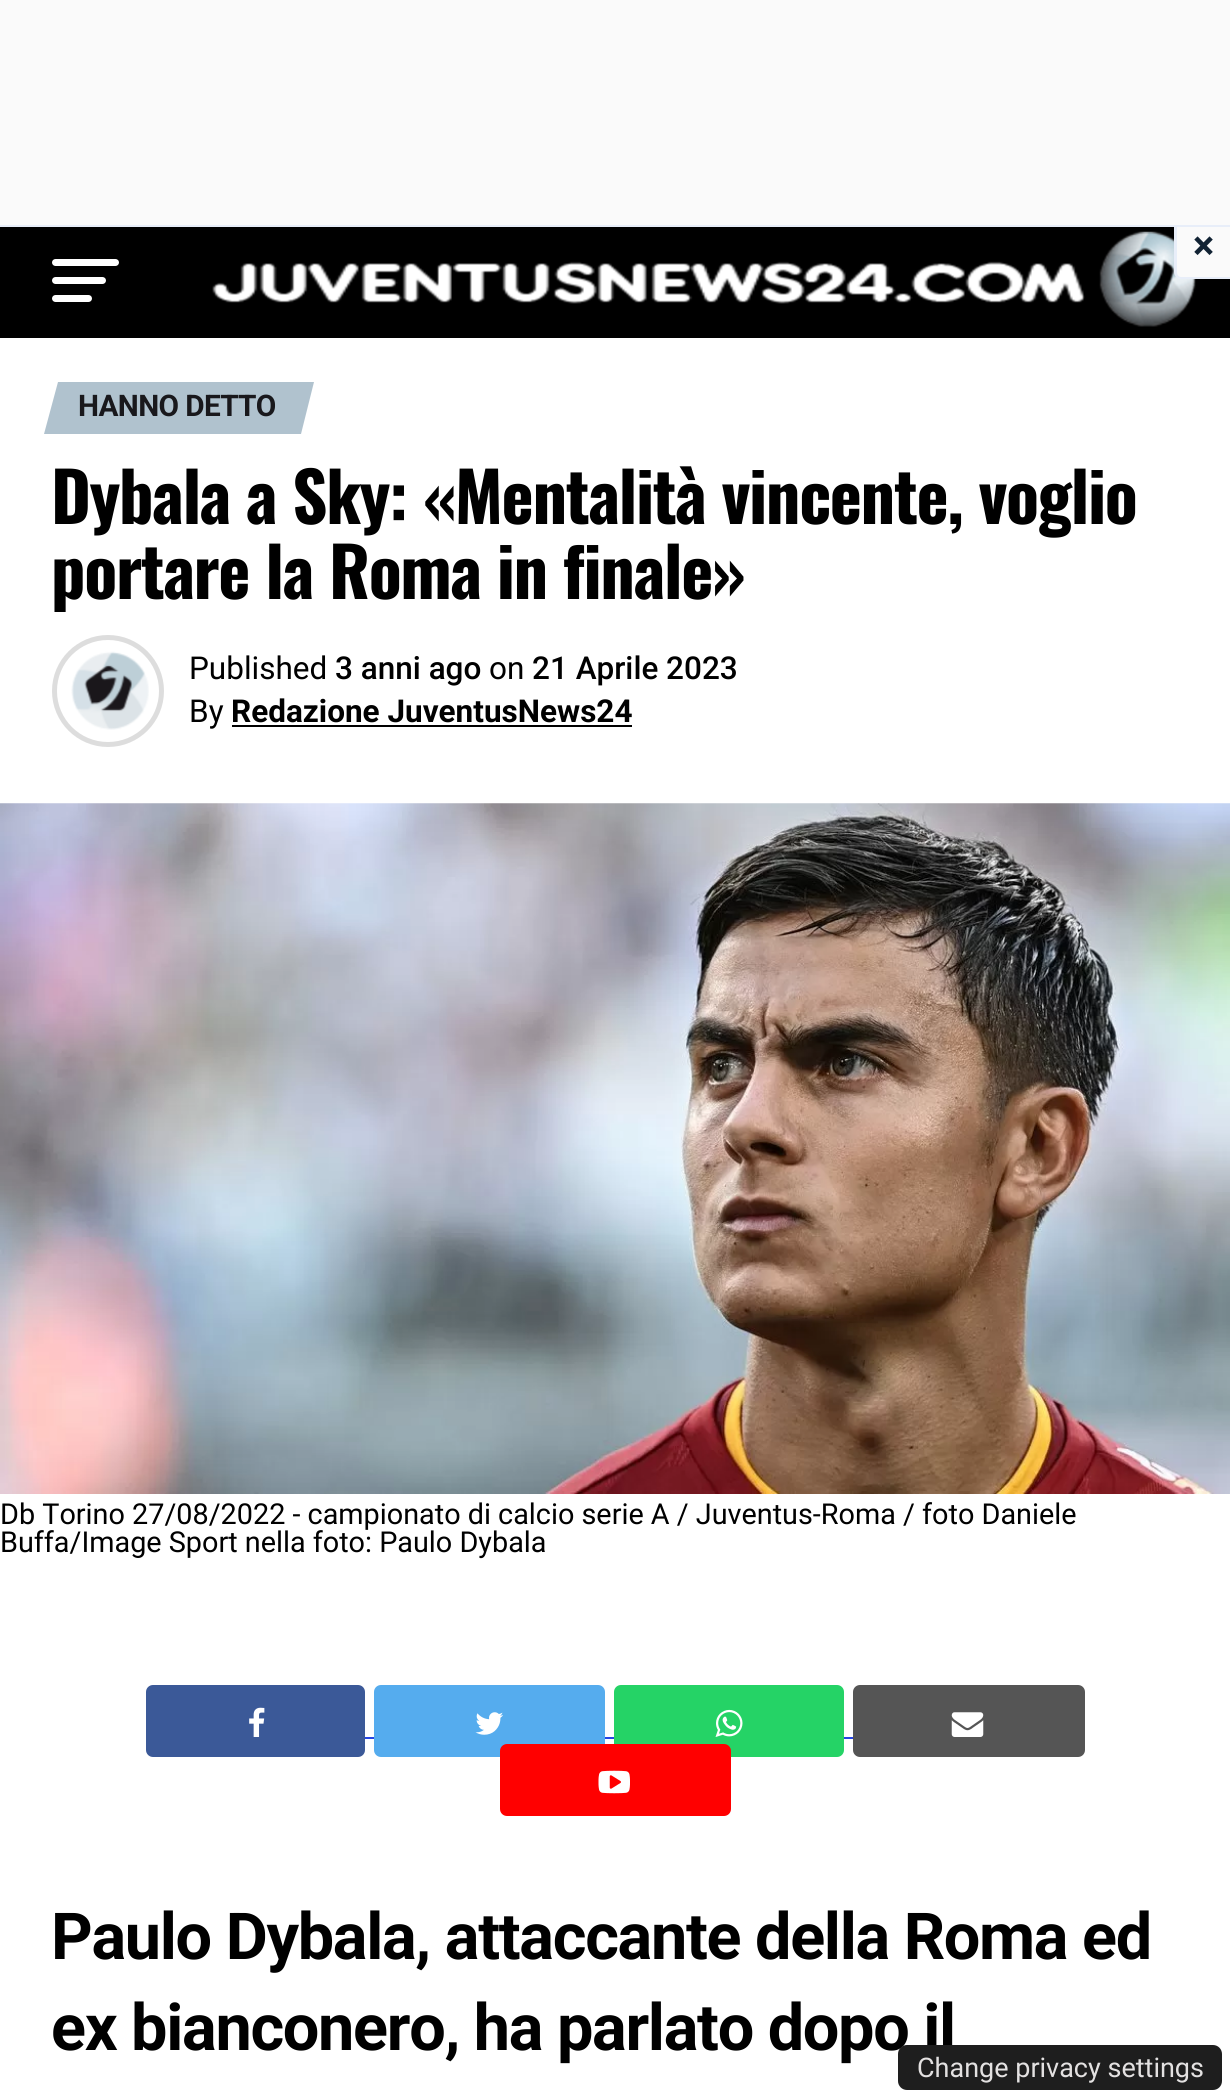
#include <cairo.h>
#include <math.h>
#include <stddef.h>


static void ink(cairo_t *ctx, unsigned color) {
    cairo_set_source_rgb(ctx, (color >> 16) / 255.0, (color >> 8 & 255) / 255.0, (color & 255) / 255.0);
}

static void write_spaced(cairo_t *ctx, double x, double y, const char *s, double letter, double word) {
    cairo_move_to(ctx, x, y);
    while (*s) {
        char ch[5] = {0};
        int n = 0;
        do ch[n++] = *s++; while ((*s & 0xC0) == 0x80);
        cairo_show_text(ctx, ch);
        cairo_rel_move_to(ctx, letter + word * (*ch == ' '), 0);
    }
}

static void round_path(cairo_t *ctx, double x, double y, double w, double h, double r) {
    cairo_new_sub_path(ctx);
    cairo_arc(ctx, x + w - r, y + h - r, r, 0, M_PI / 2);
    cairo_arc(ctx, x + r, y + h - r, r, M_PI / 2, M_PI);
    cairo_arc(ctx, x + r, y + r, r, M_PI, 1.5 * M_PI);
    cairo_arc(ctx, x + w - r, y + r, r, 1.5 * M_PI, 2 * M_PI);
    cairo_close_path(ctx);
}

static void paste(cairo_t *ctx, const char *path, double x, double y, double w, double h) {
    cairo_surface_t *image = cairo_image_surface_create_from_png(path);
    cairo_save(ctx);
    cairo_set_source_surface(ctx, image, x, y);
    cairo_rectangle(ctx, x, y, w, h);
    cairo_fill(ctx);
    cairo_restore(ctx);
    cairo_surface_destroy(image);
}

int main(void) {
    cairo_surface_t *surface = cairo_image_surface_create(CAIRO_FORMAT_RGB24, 1230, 2099);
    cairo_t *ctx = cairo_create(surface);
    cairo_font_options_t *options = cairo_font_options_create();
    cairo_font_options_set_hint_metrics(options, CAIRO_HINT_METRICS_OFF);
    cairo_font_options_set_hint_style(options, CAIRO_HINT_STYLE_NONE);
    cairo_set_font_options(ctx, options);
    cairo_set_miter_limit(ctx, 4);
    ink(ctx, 0xFFFFFF);
    cairo_paint(ctx);
    ink(ctx, 0x000000);
    cairo_rectangle(ctx, 0, 227, 1230, 111);
    cairo_fill(ctx);
    paste(ctx, "media/2.png", 1099, 231, 97, 96);
    ink(ctx, 0xFAFAFA);
    cairo_new_path(ctx);
    cairo_move_to(ctx, 1175, 223);
    cairo_line_to(ctx, 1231, 223);
    cairo_line_to(ctx, 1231, 279);
    cairo_line_to(ctx, 1182, 279);
    cairo_curve_to(ctx, 1178, 279, 1175, 276, 1175, 272);
    cairo_close_path(ctx);
    cairo_fill(ctx);
    ink(ctx, 0xE8EEF9);
    cairo_set_fill_rule(ctx, CAIRO_FILL_RULE_EVEN_ODD);
    cairo_new_path(ctx);
    cairo_move_to(ctx, 1174, 223);
    cairo_line_to(ctx, 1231, 223);
    cairo_line_to(ctx, 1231, 279);
    cairo_line_to(ctx, 1181, 279);
    cairo_curve_to(ctx, 1178, 279, 1174, 276, 1174, 272);
    cairo_close_path(ctx);
    cairo_move_to(ctx, 1177, 223);
    cairo_line_to(ctx, 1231, 223);
    cairo_line_to(ctx, 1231, 277);
    cairo_line_to(ctx, 1181, 277);
    cairo_curve_to(ctx, 1179, 277, 1177, 275, 1177, 272);
    cairo_close_path(ctx);
    cairo_fill(ctx);
    ink(ctx, 0xFAFAFA);
    cairo_rectangle(ctx, 0, 0, 1230, 225);
    cairo_fill(ctx);
    ink(ctx, 0xE8EEF9);
    cairo_rectangle(ctx, 0, 225, 1230, 2);
    cairo_fill(ctx);
    cairo_select_font_face(ctx, "Roboto", CAIRO_FONT_SLANT_NORMAL, CAIRO_FONT_WEIGHT_BOLD);
    cairo_set_font_size(ctx, 40);
    ink(ctx, 0x112233);
    cairo_move_to(ctx, 1193, 259);
    cairo_show_text(ctx, "×");
    ink(ctx, 0xFFFFFF);
    round_path(ctx, 52, 259, 67, 7, 3.5);
    cairo_fill(ctx);
    round_path(ctx, 52, 277, 54, 7, 3.5);
    cairo_fill(ctx);
    round_path(ctx, 52, 295, 40, 7, 3.5);
    cairo_fill(ctx);
    paste(ctx, "media/1.png", 212, 261, 873, 43);
    ink(ctx, 0xB0C2CE);
    cairo_set_fill_rule(ctx, CAIRO_FILL_RULE_WINDING);
    cairo_new_path(ctx);
    cairo_move_to(ctx, 58, 382);
    cairo_line_to(ctx, 314, 382);
    cairo_line_to(ctx, 301, 434);
    cairo_line_to(ctx, 44, 434);
    cairo_close_path(ctx);
    cairo_fill(ctx);
    cairo_set_font_size(ctx, 29.75);
    ink(ctx, 0x19181C);
    write_spaced(ctx, 78, 416, "HANNO DETTO", -0.6, 0);
    cairo_select_font_face(ctx, "Oswald", CAIRO_FONT_SLANT_NORMAL, CAIRO_FONT_WEIGHT_BOLD);
    cairo_set_font_size(ctx, 68.4);
    ink(ctx, 0x000000);
    write_spaced(ctx, 51, 524, "Dybala a Sky: «Mentalità vincente, voglio", -1.35, 0);
    write_spaced(ctx, 51, 599, "portare la Roma in finale»", -1.35, 0);
    cairo_new_path(ctx);
    cairo_arc(ctx, 108, 691, 53.5, 0, 2 * M_PI);
    ink(ctx, 0xDDDDDD);
    cairo_set_line_width(ctx, 5);
    cairo_stroke(ctx);
    paste(ctx, "media/3.png", 71, 651, 78, 79);
    cairo_select_font_face(ctx, "Roboto", CAIRO_FONT_SLANT_NORMAL, CAIRO_FONT_WEIGHT_NORMAL);
    cairo_set_font_size(ctx, 31.5);
    ink(ctx, 0x000000);
    cairo_move_to(ctx, 189, 679);
    cairo_show_text(ctx, "Published");
    cairo_select_font_face(ctx, "Roboto Medium", CAIRO_FONT_SLANT_NORMAL, CAIRO_FONT_WEIGHT_NORMAL);
    cairo_move_to(ctx, 335, 679);
    cairo_show_text(ctx, "3 anni ago");
    cairo_select_font_face(ctx, "Roboto", CAIRO_FONT_SLANT_NORMAL, CAIRO_FONT_WEIGHT_NORMAL);
    cairo_move_to(ctx, 489, 679);
    cairo_show_text(ctx, "on");
    cairo_select_font_face(ctx, "Roboto Medium", CAIRO_FONT_SLANT_NORMAL, CAIRO_FONT_WEIGHT_NORMAL);
    cairo_move_to(ctx, 532, 679);
    cairo_show_text(ctx, "21 Aprile 2023");
    cairo_select_font_face(ctx, "Roboto", CAIRO_FONT_SLANT_NORMAL, CAIRO_FONT_WEIGHT_NORMAL);
    cairo_move_to(ctx, 189, 722);
    cairo_show_text(ctx, "By");
    cairo_select_font_face(ctx, "Roboto", CAIRO_FONT_SLANT_NORMAL, CAIRO_FONT_WEIGHT_BOLD);
    cairo_move_to(ctx, 231, 722);
    cairo_show_text(ctx, "Redazione JuventusNews24");
    cairo_rectangle(ctx, 232, 725, 400, 2);
    cairo_fill(ctx);
    paste(ctx, "media/4.png", 0, 803, 1230, 691);
    cairo_select_font_face(ctx, "Roboto", CAIRO_FONT_SLANT_NORMAL, CAIRO_FONT_WEIGHT_NORMAL);
    cairo_set_font_size(ctx, 28.8);
    cairo_move_to(ctx, 0, 1524);
    cairo_show_text(ctx, "Db Torino 27/08/2022 - campionato di calcio serie A / Juventus-Roma / foto Daniele");
    cairo_move_to(ctx, 0, 1552);
    cairo_show_text(ctx, "Buffa/Image Sport nella foto: Paulo Dybala");
    ink(ctx, 0x3B5998);
    round_path(ctx, 146, 1685, 219, 72, 7);
    cairo_fill(ctx);
    paste(ctx, "media/5.png", 249, 1707, 16, 30);
    ink(ctx, 0x2545E4);
    cairo_rectangle(ctx, 365, 1737, 9, 2);
    cairo_fill(ctx);
    ink(ctx, 0x55ACEE);
    round_path(ctx, 374, 1685, 231, 72, 7);
    cairo_fill(ctx);
    paste(ctx, "media/6.png", 475, 1712, 28, 23);
    ink(ctx, 0x2545E4);
    cairo_rectangle(ctx, 605, 1737, 9, 2);
    cairo_fill(ctx);
    ink(ctx, 0x25D366);
    round_path(ctx, 614, 1685, 230, 72, 7);
    cairo_fill(ctx);
    paste(ctx, "media/7.png", 715, 1709, 28, 28);
    ink(ctx, 0x2545E4);
    cairo_rectangle(ctx, 844, 1737, 9, 2);
    cairo_fill(ctx);
    ink(ctx, 0x555555);
    round_path(ctx, 853, 1685, 232, 72, 7);
    cairo_fill(ctx);
    paste(ctx, "media/8.png", 951, 1712, 33, 25);
    ink(ctx, 0xFF0000);
    round_path(ctx, 500, 1744, 231, 72, 7);
    cairo_fill(ctx);
    paste(ctx, "media/9.png", 598, 1770, 32, 24);
    cairo_select_font_face(ctx, "Roboto", CAIRO_FONT_SLANT_NORMAL, CAIRO_FONT_WEIGHT_BOLD);
    cairo_set_font_size(ctx, 64.75);
    ink(ctx, 0x000000);
    write_spaced(ctx, 51, 1959, "Paulo Dybala, attaccante della Roma ed", -1.3, 0);
    write_spaced(ctx, 51, 2050, "ex bianconero, ha parlato dopo il", -1.3, 0);
    ink(ctx, 0x1E1E1E);
    round_path(ctx, 898, 2045, 324, 45, 9);
    cairo_fill(ctx);
    cairo_select_font_face(ctx, "Roboto", CAIRO_FONT_SLANT_NORMAL, CAIRO_FONT_WEIGHT_NORMAL);
    cairo_set_font_size(ctx, 27);
    ink(ctx, 0xE3E1E1);
    cairo_move_to(ctx, 917, 2077);
    cairo_show_text(ctx, "Change privacy settings");
    cairo_surface_write_to_png(surface, "image.png");
    cairo_font_options_destroy(options);
    cairo_destroy(ctx);
    cairo_surface_destroy(surface);
    return 0;
}
